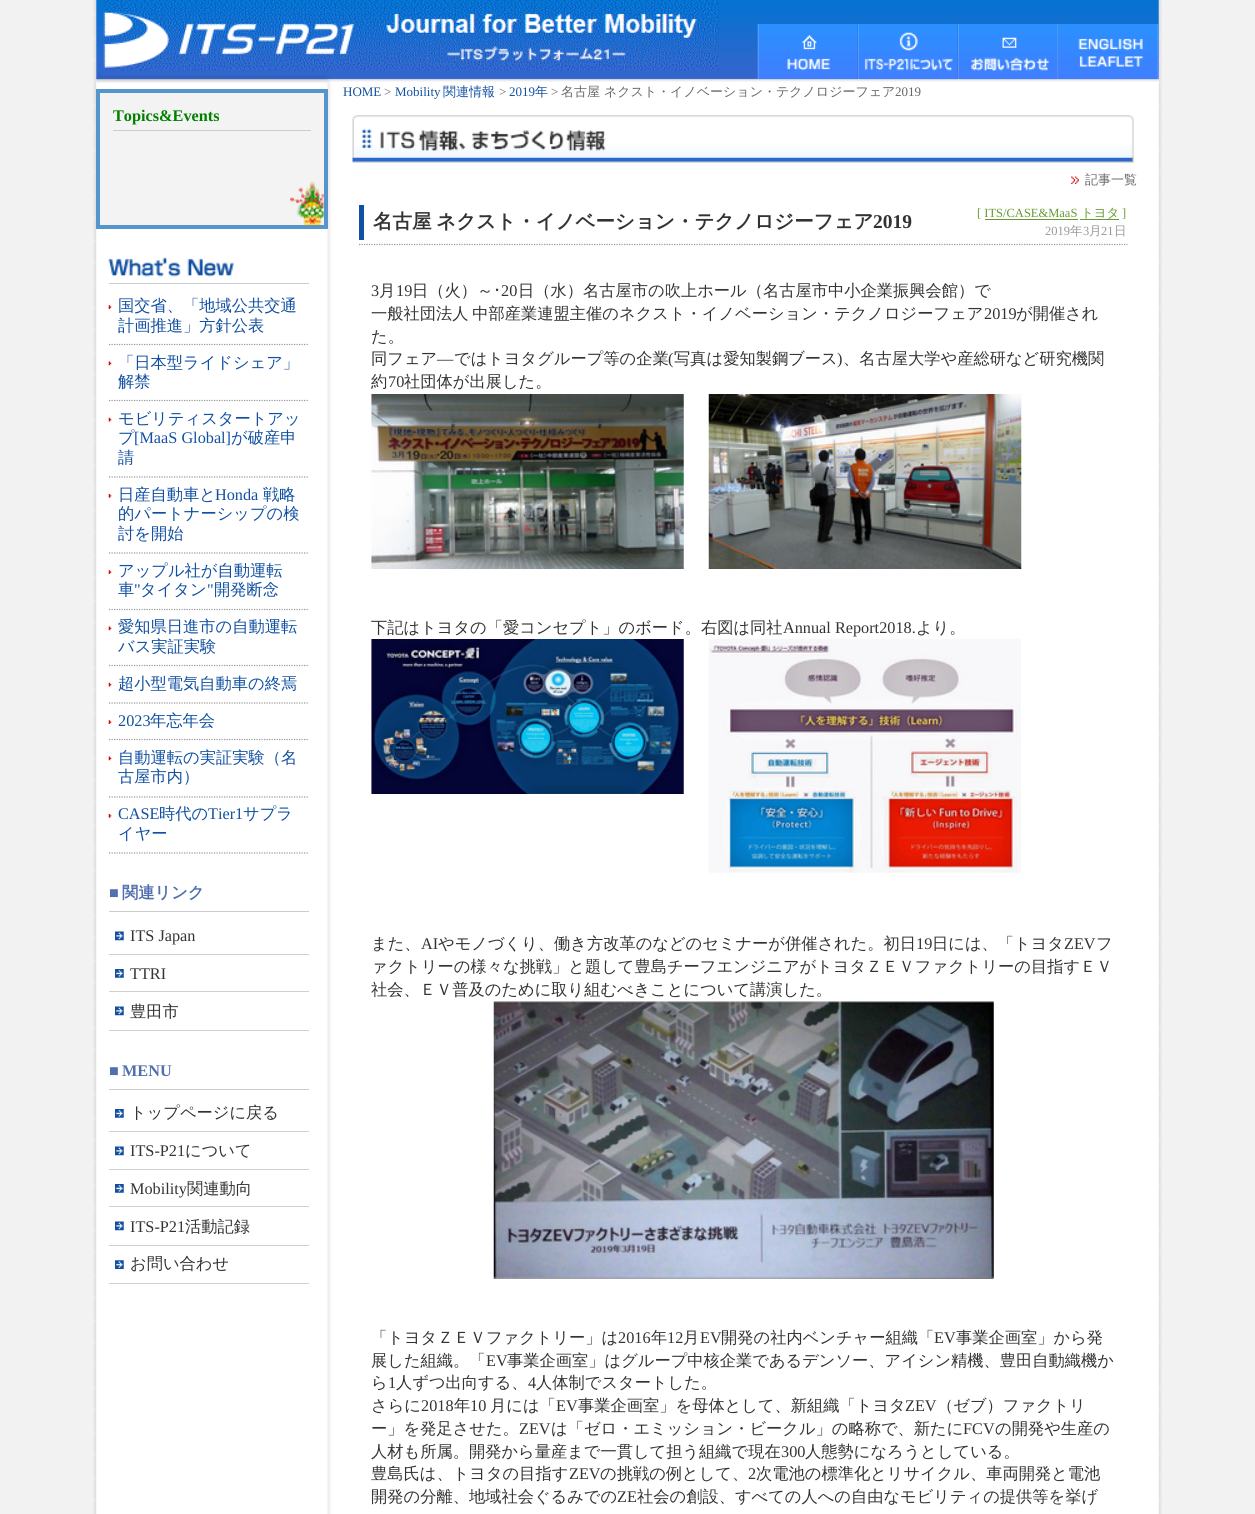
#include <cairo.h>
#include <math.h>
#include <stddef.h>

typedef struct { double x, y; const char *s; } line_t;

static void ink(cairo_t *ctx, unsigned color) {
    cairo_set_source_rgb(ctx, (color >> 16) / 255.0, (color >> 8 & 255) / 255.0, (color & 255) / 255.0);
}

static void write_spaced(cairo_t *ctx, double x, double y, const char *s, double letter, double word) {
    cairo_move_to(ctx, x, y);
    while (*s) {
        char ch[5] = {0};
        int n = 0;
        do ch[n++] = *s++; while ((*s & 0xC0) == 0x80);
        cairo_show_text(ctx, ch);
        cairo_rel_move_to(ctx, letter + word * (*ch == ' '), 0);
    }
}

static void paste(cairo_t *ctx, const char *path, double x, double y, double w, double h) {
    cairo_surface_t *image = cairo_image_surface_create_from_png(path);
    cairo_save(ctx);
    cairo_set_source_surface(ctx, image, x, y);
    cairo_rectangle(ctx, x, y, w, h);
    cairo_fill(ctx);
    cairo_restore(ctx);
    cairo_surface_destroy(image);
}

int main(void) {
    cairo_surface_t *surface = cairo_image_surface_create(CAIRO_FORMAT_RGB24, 1255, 1514);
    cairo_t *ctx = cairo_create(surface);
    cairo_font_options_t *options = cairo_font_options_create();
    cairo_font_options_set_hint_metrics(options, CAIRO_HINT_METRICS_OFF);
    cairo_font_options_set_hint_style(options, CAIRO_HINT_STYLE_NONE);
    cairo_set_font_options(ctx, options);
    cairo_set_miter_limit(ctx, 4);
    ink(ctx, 0xF2F2F2);
    cairo_paint(ctx);
    paste(ctx, "media/1.png", 93, 0, 1069, 1514);
    ink(ctx, 0xFFFFFF);
    cairo_rectangle(ctx, 96, 0, 1063, 83);
    cairo_fill(ctx);
    paste(ctx, "media/2.png", 96, 0, 1063, 83);
    paste(ctx, "media/3.png", 103, 0, 616, 71);
    paste(ctx, "media/4.png", 757, 24, 101, 55);
    paste(ctx, "media/5.png", 857, 24, 101, 55);
    paste(ctx, "media/6.png", 957, 24, 102, 55);
    paste(ctx, "media/7.png", 1059, 24, 100, 55);
    paste(ctx, "media/8.png", 96, 83, 1063, 1431);
    ink(ctx, 0xF3F3F3);
    cairo_rectangle(ctx, 98, 91, 228, 136);
    cairo_fill_preserve(ctx);
    ink(ctx, 0x5495CC);
    cairo_set_line_width(ctx, 4);
    cairo_stroke(ctx);
    paste(ctx, "media/9.png", 289, 181, 35, 45);
    ink(ctx, 0xCCCCCC);
    cairo_rectangle(ctx, 113, 130, 198, 1);
    cairo_fill(ctx);
    cairo_select_font_face(ctx, "Liberation Serif", CAIRO_FONT_SLANT_NORMAL, CAIRO_FONT_WEIGHT_BOLD);
    cairo_set_font_size(ctx, 16.25);
    ink(ctx, 0x008000);
    cairo_move_to(ctx, 113, 121);
    cairo_show_text(ctx, "Topics&Events");
    ink(ctx, 0xCCCCCC);
    cairo_rectangle(ctx, 109, 283, 200, 1);
    cairo_fill(ctx);
    paste(ctx, "media/10.png", 108, 257, 126, 20);
    cairo_new_path(ctx);
    cairo_move_to(ctx, 109, 344.5);
    cairo_line_to(ctx, 309, 344.5);
    ink(ctx, 0x999999);
    cairo_set_line_width(ctx, 1.2);
    cairo_set_dash(ctx, (double[]){1.25, 1.25}, 2, 0);
    cairo_stroke(ctx);
    paste(ctx, "media/11.png", 108, 305, 4, 4);
    cairo_select_font_face(ctx, "WenQuanYi Zen Hei Medium", CAIRO_FONT_SLANT_NORMAL, CAIRO_FONT_WEIGHT_NORMAL);
    ink(ctx, 0x1150A1);
    cairo_move_to(ctx, 118, 311);
    cairo_show_text(ctx, "国交省、「地域公共交通");
    cairo_move_to(ctx, 118, 331);
    cairo_show_text(ctx, "計画推進」方針公表");
    cairo_new_path(ctx);
    cairo_move_to(ctx, 109, 400.5);
    cairo_line_to(ctx, 309, 400.5);
    ink(ctx, 0x999999);
    cairo_stroke(ctx);
    paste(ctx, "media/12.png", 108, 361, 4, 5);
    ink(ctx, 0x1150A1);
    cairo_move_to(ctx, 118, 368);
    cairo_show_text(ctx, "「日本型ライドシェア」");
    cairo_move_to(ctx, 118, 387);
    cairo_show_text(ctx, "解禁");
    cairo_new_path(ctx);
    cairo_move_to(ctx, 109, 477);
    cairo_line_to(ctx, 309, 477);
    ink(ctx, 0x999999);
    cairo_stroke(ctx);
    paste(ctx, "media/13.png", 108, 417, 4, 5);
    ink(ctx, 0x1150A1);
    cairo_move_to(ctx, 118, 424);
    cairo_show_text(ctx, "モビリティスタートアッ");
    cairo_move_to(ctx, 118, 443);
    cairo_show_text(ctx, "プ");
    cairo_select_font_face(ctx, "Liberation Serif", CAIRO_FONT_SLANT_NORMAL, CAIRO_FONT_WEIGHT_NORMAL);
    cairo_move_to(ctx, 134, 443);
    cairo_show_text(ctx, "[MaaS Global]");
    cairo_select_font_face(ctx, "WenQuanYi Zen Hei Medium", CAIRO_FONT_SLANT_NORMAL, CAIRO_FONT_WEIGHT_NORMAL);
    cairo_move_to(ctx, 231, 443);
    cairo_show_text(ctx, "が破産申");
    cairo_move_to(ctx, 118, 463);
    cairo_show_text(ctx, "請");
    cairo_new_path(ctx);
    cairo_move_to(ctx, 109, 553);
    cairo_line_to(ctx, 309, 553);
    ink(ctx, 0x999999);
    cairo_stroke(ctx);
    paste(ctx, "media/14.png", 108, 494, 4, 4);
    ink(ctx, 0x1150A1);
    cairo_move_to(ctx, 118, 500);
    cairo_show_text(ctx, "日産自動車と");
    cairo_select_font_face(ctx, "Liberation Serif", CAIRO_FONT_SLANT_NORMAL, CAIRO_FONT_WEIGHT_NORMAL);
    cairo_move_to(ctx, 215, 500);
    cairo_show_text(ctx, "Honda");
    cairo_select_font_face(ctx, "WenQuanYi Zen Hei Medium", CAIRO_FONT_SLANT_NORMAL, CAIRO_FONT_WEIGHT_NORMAL);
    {
        static const line_t items[] = {
            {263, 500, "戦略"},
            {118, 519, "的パートナーシップの検"},
            {118, 539, "討を開始"},
        };
        for (size_t i = 0; i < sizeof items / sizeof *items; i++) {
            cairo_move_to(ctx, items[i].x, items[i].y);
            cairo_show_text(ctx, items[i].s);
        }
    }
    cairo_new_path(ctx);
    cairo_move_to(ctx, 109, 609.5);
    cairo_line_to(ctx, 309, 609.5);
    ink(ctx, 0x999999);
    cairo_stroke(ctx);
    paste(ctx, "media/11.png", 108, 570, 4, 4);
    ink(ctx, 0x1150A1);
    cairo_move_to(ctx, 118, 576);
    cairo_show_text(ctx, "アップル社が自動運転");
    cairo_move_to(ctx, 118, 595);
    cairo_show_text(ctx, "車");
    cairo_select_font_face(ctx, "Liberation Serif", CAIRO_FONT_SLANT_NORMAL, CAIRO_FONT_WEIGHT_NORMAL);
    cairo_move_to(ctx, 134, 595);
    cairo_show_text(ctx, "\"");
    cairo_select_font_face(ctx, "WenQuanYi Zen Hei Medium", CAIRO_FONT_SLANT_NORMAL, CAIRO_FONT_WEIGHT_NORMAL);
    cairo_move_to(ctx, 140, 595);
    cairo_show_text(ctx, "タイタン");
    cairo_select_font_face(ctx, "Liberation Serif", CAIRO_FONT_SLANT_NORMAL, CAIRO_FONT_WEIGHT_NORMAL);
    cairo_move_to(ctx, 207, 595);
    cairo_show_text(ctx, "\"");
    cairo_select_font_face(ctx, "WenQuanYi Zen Hei Medium", CAIRO_FONT_SLANT_NORMAL, CAIRO_FONT_WEIGHT_NORMAL);
    cairo_move_to(ctx, 214, 595);
    cairo_show_text(ctx, "開発断念");
    cairo_new_path(ctx);
    cairo_move_to(ctx, 109, 665.5);
    cairo_line_to(ctx, 309, 665.5);
    ink(ctx, 0x999999);
    cairo_stroke(ctx);
    paste(ctx, "media/12.png", 108, 626, 4, 5);
    ink(ctx, 0x1150A1);
    cairo_move_to(ctx, 118, 632);
    cairo_show_text(ctx, "愛知県日進市の自動運転");
    cairo_move_to(ctx, 118, 652);
    cairo_show_text(ctx, "バス実証実験");
    cairo_new_path(ctx);
    cairo_move_to(ctx, 109, 703);
    cairo_line_to(ctx, 309, 703);
    ink(ctx, 0x999999);
    cairo_stroke(ctx);
    paste(ctx, "media/13.png", 108, 682, 4, 5);
    ink(ctx, 0x1150A1);
    cairo_move_to(ctx, 118, 689);
    cairo_show_text(ctx, "超小型電気自動車の終焉");
    cairo_new_path(ctx);
    cairo_move_to(ctx, 109, 739.5);
    cairo_line_to(ctx, 309, 739.5);
    ink(ctx, 0x999999);
    cairo_stroke(ctx);
    paste(ctx, "media/11.png", 108, 720, 4, 4);
    cairo_select_font_face(ctx, "Liberation Serif", CAIRO_FONT_SLANT_NORMAL, CAIRO_FONT_WEIGHT_NORMAL);
    ink(ctx, 0x1150A1);
    cairo_move_to(ctx, 118, 726);
    cairo_show_text(ctx, "2023");
    cairo_select_font_face(ctx, "WenQuanYi Zen Hei Medium", CAIRO_FONT_SLANT_NORMAL, CAIRO_FONT_WEIGHT_NORMAL);
    cairo_move_to(ctx, 150, 726);
    cairo_show_text(ctx, "年忘年会");
    cairo_new_path(ctx);
    cairo_move_to(ctx, 109, 797);
    cairo_line_to(ctx, 309, 797);
    ink(ctx, 0x999999);
    cairo_stroke(ctx);
    paste(ctx, "media/12.png", 108, 756, 4, 5);
    ink(ctx, 0x1150A1);
    cairo_move_to(ctx, 118, 763);
    cairo_show_text(ctx, "自動運転の実証実験（名");
    cairo_move_to(ctx, 118, 782);
    cairo_show_text(ctx, "古屋市内）");
    cairo_new_path(ctx);
    cairo_move_to(ctx, 109, 853);
    cairo_line_to(ctx, 309, 853);
    ink(ctx, 0x999999);
    cairo_stroke(ctx);
    paste(ctx, "media/14.png", 108, 814, 4, 4);
    cairo_select_font_face(ctx, "Liberation Serif", CAIRO_FONT_SLANT_NORMAL, CAIRO_FONT_WEIGHT_NORMAL);
    ink(ctx, 0x1150A1);
    cairo_move_to(ctx, 118, 819);
    cairo_show_text(ctx, "CASE");
    cairo_select_font_face(ctx, "WenQuanYi Zen Hei Medium", CAIRO_FONT_SLANT_NORMAL, CAIRO_FONT_WEIGHT_NORMAL);
    cairo_move_to(ctx, 159, 819);
    cairo_show_text(ctx, "時代の");
    cairo_select_font_face(ctx, "Liberation Serif", CAIRO_FONT_SLANT_NORMAL, CAIRO_FONT_WEIGHT_NORMAL);
    cairo_move_to(ctx, 208, 819);
    cairo_show_text(ctx, "Tier1");
    cairo_select_font_face(ctx, "WenQuanYi Zen Hei Medium", CAIRO_FONT_SLANT_NORMAL, CAIRO_FONT_WEIGHT_NORMAL);
    cairo_move_to(ctx, 243, 819);
    cairo_show_text(ctx, "サプラ");
    cairo_move_to(ctx, 118, 839);
    cairo_show_text(ctx, "イヤー");
    ink(ctx, 0xCCCCCC);
    cairo_rectangle(ctx, 109, 911, 200, 1);
    cairo_fill(ctx);
    cairo_select_font_face(ctx, "Liberation Serif", CAIRO_FONT_SLANT_NORMAL, CAIRO_FONT_WEIGHT_BOLD);
    ink(ctx, 0x5270AD);
    cairo_move_to(ctx, 109, 898);
    cairo_show_text(ctx, "■");
    cairo_select_font_face(ctx, "WenQuanYi Zen Hei", CAIRO_FONT_SLANT_NORMAL, CAIRO_FONT_WEIGHT_BOLD);
    cairo_move_to(ctx, 122, 898);
    cairo_show_text(ctx, "関連リンク");
    ink(ctx, 0xD2D0C8);
    cairo_rectangle(ctx, 109, 954, 200, 1);
    cairo_fill(ctx);
    paste(ctx, "media/15.png", 115, 931, 9, 10);
    cairo_select_font_face(ctx, "Liberation Serif", CAIRO_FONT_SLANT_NORMAL, CAIRO_FONT_WEIGHT_NORMAL);
    ink(ctx, 0x333333);
    cairo_move_to(ctx, 130, 941);
    cairo_show_text(ctx, "ITS Japan");
    ink(ctx, 0xD2D0C8);
    cairo_rectangle(ctx, 109, 991, 200, 1);
    cairo_fill(ctx);
    paste(ctx, "media/16.png", 115, 969, 9, 9);
    ink(ctx, 0x333333);
    cairo_move_to(ctx, 130, 979);
    cairo_show_text(ctx, "TTRI");
    ink(ctx, 0xD2D0C8);
    cairo_rectangle(ctx, 109, 1030, 200, 1);
    cairo_fill(ctx);
    paste(ctx, "media/15.png", 115, 1006, 9, 10);
    cairo_select_font_face(ctx, "WenQuanYi Zen Hei Medium", CAIRO_FONT_SLANT_NORMAL, CAIRO_FONT_WEIGHT_NORMAL);
    ink(ctx, 0x333333);
    cairo_move_to(ctx, 130, 1017);
    cairo_show_text(ctx, "豊田市");
    ink(ctx, 0xCCCCCC);
    cairo_rectangle(ctx, 109, 1089, 200, 1);
    cairo_fill(ctx);
    cairo_select_font_face(ctx, "Liberation Serif", CAIRO_FONT_SLANT_NORMAL, CAIRO_FONT_WEIGHT_BOLD);
    ink(ctx, 0x5270AD);
    cairo_move_to(ctx, 109, 1076);
    cairo_show_text(ctx, "■");
    cairo_move_to(ctx, 122, 1076);
    cairo_show_text(ctx, "MENU");
    ink(ctx, 0xD2D0C8);
    cairo_rectangle(ctx, 109, 1131, 200, 1);
    cairo_fill(ctx);
    paste(ctx, "media/16.png", 115, 1109, 9, 9);
    cairo_select_font_face(ctx, "WenQuanYi Zen Hei Medium", CAIRO_FONT_SLANT_NORMAL, CAIRO_FONT_WEIGHT_NORMAL);
    ink(ctx, 0x333333);
    cairo_move_to(ctx, 130, 1118);
    cairo_show_text(ctx, "トップページに戻る");
    ink(ctx, 0xD2D0C8);
    cairo_rectangle(ctx, 109, 1169, 200, 1);
    cairo_fill(ctx);
    paste(ctx, "media/15.png", 115, 1146, 9, 10);
    cairo_select_font_face(ctx, "Liberation Serif", CAIRO_FONT_SLANT_NORMAL, CAIRO_FONT_WEIGHT_NORMAL);
    ink(ctx, 0x333333);
    cairo_move_to(ctx, 130, 1156);
    cairo_show_text(ctx, "ITS-P21");
    cairo_select_font_face(ctx, "WenQuanYi Zen Hei Medium", CAIRO_FONT_SLANT_NORMAL, CAIRO_FONT_WEIGHT_NORMAL);
    cairo_move_to(ctx, 185, 1156);
    cairo_show_text(ctx, "について");
    ink(ctx, 0xD2D0C8);
    cairo_rectangle(ctx, 109, 1206, 200, 1);
    cairo_fill(ctx);
    paste(ctx, "media/16.png", 115, 1184, 9, 9);
    cairo_select_font_face(ctx, "Liberation Serif", CAIRO_FONT_SLANT_NORMAL, CAIRO_FONT_WEIGHT_NORMAL);
    ink(ctx, 0x333333);
    cairo_move_to(ctx, 130, 1194);
    cairo_show_text(ctx, "Mobility");
    cairo_select_font_face(ctx, "WenQuanYi Zen Hei Medium", CAIRO_FONT_SLANT_NORMAL, CAIRO_FONT_WEIGHT_NORMAL);
    cairo_move_to(ctx, 187, 1194);
    cairo_show_text(ctx, "関連動向");
    ink(ctx, 0xD2D0C8);
    cairo_rectangle(ctx, 109, 1245, 200, 1);
    cairo_fill(ctx);
    paste(ctx, "media/15.png", 115, 1221, 9, 10);
    cairo_select_font_face(ctx, "Liberation Serif", CAIRO_FONT_SLANT_NORMAL, CAIRO_FONT_WEIGHT_NORMAL);
    ink(ctx, 0x333333);
    cairo_move_to(ctx, 130, 1232);
    cairo_show_text(ctx, "ITS-P21");
    cairo_select_font_face(ctx, "WenQuanYi Zen Hei Medium", CAIRO_FONT_SLANT_NORMAL, CAIRO_FONT_WEIGHT_NORMAL);
    cairo_move_to(ctx, 185, 1232);
    cairo_show_text(ctx, "活動記録");
    ink(ctx, 0xD2D0C8);
    cairo_rectangle(ctx, 109, 1283, 200, 1);
    cairo_fill(ctx);
    paste(ctx, "media/17.png", 115, 1260, 9, 9);
    ink(ctx, 0x333333);
    cairo_move_to(ctx, 130, 1269);
    cairo_show_text(ctx, "お問い合わせ");
    cairo_select_font_face(ctx, "Liberation Serif", CAIRO_FONT_SLANT_NORMAL, CAIRO_FONT_WEIGHT_NORMAL);
    cairo_set_font_size(ctx, 13);
    ink(ctx, 0x1150A1);
    cairo_move_to(ctx, 343, 96);
    cairo_show_text(ctx, "HOME");
    ink(ctx, 0x666666);
    cairo_move_to(ctx, 384, 96);
    cairo_show_text(ctx, ">");
    ink(ctx, 0x1150A1);
    cairo_move_to(ctx, 395, 96);
    cairo_show_text(ctx, "Mobility");
    cairo_select_font_face(ctx, "WenQuanYi Zen Hei Medium", CAIRO_FONT_SLANT_NORMAL, CAIRO_FONT_WEIGHT_NORMAL);
    cairo_move_to(ctx, 443, 96);
    cairo_show_text(ctx, "関連情報");
    cairo_select_font_face(ctx, "Liberation Serif", CAIRO_FONT_SLANT_NORMAL, CAIRO_FONT_WEIGHT_NORMAL);
    ink(ctx, 0x666666);
    cairo_move_to(ctx, 499, 96);
    cairo_show_text(ctx, ">");
    ink(ctx, 0x1150A1);
    cairo_move_to(ctx, 509, 96);
    cairo_show_text(ctx, "2019");
    cairo_select_font_face(ctx, "WenQuanYi Zen Hei Medium", CAIRO_FONT_SLANT_NORMAL, CAIRO_FONT_WEIGHT_NORMAL);
    cairo_move_to(ctx, 535, 96);
    cairo_show_text(ctx, "年");
    cairo_select_font_face(ctx, "Liberation Serif", CAIRO_FONT_SLANT_NORMAL, CAIRO_FONT_WEIGHT_NORMAL);
    ink(ctx, 0x666666);
    cairo_move_to(ctx, 551, 96);
    cairo_show_text(ctx, ">");
    cairo_select_font_face(ctx, "WenQuanYi Zen Hei Medium", CAIRO_FONT_SLANT_NORMAL, CAIRO_FONT_WEIGHT_NORMAL);
    cairo_move_to(ctx, 561, 96);
    cairo_show_text(ctx, "名古屋 ネクスト・イノベーション・テクノロジーフェア");
    cairo_select_font_face(ctx, "Liberation Serif", CAIRO_FONT_SLANT_NORMAL, CAIRO_FONT_WEIGHT_NORMAL);
    cairo_move_to(ctx, 895, 96);
    cairo_show_text(ctx, "2019");
    paste(ctx, "media/18.png", 352, 115, 782, 48);
    paste(ctx, "media/19.png", 1071, 176, 8, 8);
    cairo_select_font_face(ctx, "WenQuanYi Zen Hei Medium", CAIRO_FONT_SLANT_NORMAL, CAIRO_FONT_WEIGHT_NORMAL);
    cairo_move_to(ctx, 1085, 184);
    cairo_show_text(ctx, "記事一覧");
    cairo_new_path(ctx);
    cairo_move_to(ctx, 359, 244.5);
    cairo_line_to(ctx, 1127.5, 244.5);
    ink(ctx, 0x999999);
    cairo_stroke(ctx);
    ink(ctx, 0x1150A1);
    cairo_rectangle(ctx, 359, 205, 5, 35);
    cairo_fill(ctx);
    cairo_select_font_face(ctx, "WenQuanYi Zen Hei", CAIRO_FONT_SLANT_NORMAL, CAIRO_FONT_WEIGHT_BOLD);
    cairo_set_font_size(ctx, 19.5);
    ink(ctx, 0x333333);
    write_spaced(ctx, 373, 228, "名古屋 ネクスト・イノベーション・テクノロジーフェア", 0, -1);
    cairo_select_font_face(ctx, "Liberation Serif", CAIRO_FONT_SLANT_NORMAL, CAIRO_FONT_WEIGHT_BOLD);
    cairo_move_to(ctx, 873, 228);
    cairo_show_text(ctx, "2019");
    cairo_select_font_face(ctx, "Liberation Serif", CAIRO_FONT_SLANT_NORMAL, CAIRO_FONT_WEIGHT_NORMAL);
    cairo_set_font_size(ctx, 12.5);
    ink(ctx, 0x669933);
    cairo_move_to(ctx, 977, 217);
    cairo_show_text(ctx, "[ ITS/CASE&MaaS");
    cairo_select_font_face(ctx, "WenQuanYi Zen Hei Medium", CAIRO_FONT_SLANT_NORMAL, CAIRO_FONT_WEIGHT_NORMAL);
    cairo_move_to(ctx, 1081, 217);
    cairo_show_text(ctx, "トヨタ");
    cairo_rectangle(ctx, 1080, 219, 39, 1);
    cairo_fill(ctx);
    cairo_select_font_face(ctx, "Liberation Serif", CAIRO_FONT_SLANT_NORMAL, CAIRO_FONT_WEIGHT_NORMAL);
    cairo_move_to(ctx, 1122, 217);
    cairo_show_text(ctx, "]");
    cairo_rectangle(ctx, 985, 219, 93, 1);
    cairo_fill(ctx);
    ink(ctx, 0x999999);
    cairo_move_to(ctx, 1045, 235);
    cairo_show_text(ctx, "2019");
    cairo_select_font_face(ctx, "WenQuanYi Zen Hei Medium", CAIRO_FONT_SLANT_NORMAL, CAIRO_FONT_WEIGHT_NORMAL);
    cairo_move_to(ctx, 1070, 235);
    cairo_show_text(ctx, "年");
    cairo_select_font_face(ctx, "Liberation Serif", CAIRO_FONT_SLANT_NORMAL, CAIRO_FONT_WEIGHT_NORMAL);
    cairo_move_to(ctx, 1083, 235);
    cairo_show_text(ctx, "3");
    cairo_select_font_face(ctx, "WenQuanYi Zen Hei Medium", CAIRO_FONT_SLANT_NORMAL, CAIRO_FONT_WEIGHT_NORMAL);
    cairo_move_to(ctx, 1089, 235);
    cairo_show_text(ctx, "月");
    cairo_select_font_face(ctx, "Liberation Serif", CAIRO_FONT_SLANT_NORMAL, CAIRO_FONT_WEIGHT_NORMAL);
    cairo_move_to(ctx, 1101, 235);
    cairo_show_text(ctx, "21");
    cairo_select_font_face(ctx, "WenQuanYi Zen Hei Medium", CAIRO_FONT_SLANT_NORMAL, CAIRO_FONT_WEIGHT_NORMAL);
    cairo_move_to(ctx, 1114, 235);
    cairo_show_text(ctx, "日");
    cairo_select_font_face(ctx, "Liberation Serif", CAIRO_FONT_SLANT_NORMAL, CAIRO_FONT_WEIGHT_NORMAL);
    cairo_set_font_size(ctx, 16.25);
    ink(ctx, 0x333333);
    cairo_move_to(ctx, 371, 296);
    cairo_show_text(ctx, "3");
    cairo_select_font_face(ctx, "WenQuanYi Zen Hei Medium", CAIRO_FONT_SLANT_NORMAL, CAIRO_FONT_WEIGHT_NORMAL);
    cairo_move_to(ctx, 379, 296);
    cairo_show_text(ctx, "月");
    cairo_select_font_face(ctx, "Liberation Serif", CAIRO_FONT_SLANT_NORMAL, CAIRO_FONT_WEIGHT_NORMAL);
    cairo_move_to(ctx, 396, 296);
    cairo_show_text(ctx, "19");
    cairo_select_font_face(ctx, "WenQuanYi Zen Hei Medium", CAIRO_FONT_SLANT_NORMAL, CAIRO_FONT_WEIGHT_NORMAL);
    cairo_move_to(ctx, 412, 296);
    cairo_show_text(ctx, "日（火）～");
    cairo_select_font_face(ctx, "IPAPGothic", CAIRO_FONT_SLANT_NORMAL, CAIRO_FONT_WEIGHT_NORMAL);
    cairo_move_to(ctx, 493, 296);
    cairo_show_text(ctx, "･");
    cairo_select_font_face(ctx, "Liberation Serif", CAIRO_FONT_SLANT_NORMAL, CAIRO_FONT_WEIGHT_NORMAL);
    cairo_move_to(ctx, 501, 296);
    cairo_show_text(ctx, "20");
    cairo_select_font_face(ctx, "WenQuanYi Zen Hei Medium", CAIRO_FONT_SLANT_NORMAL, CAIRO_FONT_WEIGHT_NORMAL);
    cairo_move_to(ctx, 518, 296);
    cairo_show_text(ctx, "日（水）名古屋市の吹上ホール（名古屋市中小企業振興会館）で");
    write_spaced(ctx, 371, 319, "一般社団法人 中部産業連盟主催のネクスト・イノベーション・テクノロジーフェア", 0, -1);
    cairo_select_font_face(ctx, "Liberation Serif", CAIRO_FONT_SLANT_NORMAL, CAIRO_FONT_WEIGHT_NORMAL);
    cairo_move_to(ctx, 984, 319);
    cairo_show_text(ctx, "2019");
    cairo_select_font_face(ctx, "WenQuanYi Zen Hei Medium", CAIRO_FONT_SLANT_NORMAL, CAIRO_FONT_WEIGHT_NORMAL);
    {
        static const line_t items[] = {
            {1016, 319, "が開催され"},
            {371, 342, "た。"},
            {371, 364, "同フェア"},
        };
        for (size_t i = 0; i < sizeof items / sizeof *items; i++) {
            cairo_move_to(ctx, items[i].x, items[i].y);
            cairo_show_text(ctx, items[i].s);
        }
    }
    cairo_select_font_face(ctx, "Liberation Serif", CAIRO_FONT_SLANT_NORMAL, CAIRO_FONT_WEIGHT_NORMAL);
    cairo_move_to(ctx, 437, 364);
    cairo_show_text(ctx, "―");
    cairo_select_font_face(ctx, "WenQuanYi Zen Hei Medium", CAIRO_FONT_SLANT_NORMAL, CAIRO_FONT_WEIGHT_NORMAL);
    cairo_move_to(ctx, 454, 364);
    cairo_show_text(ctx, "ではトヨタグループ等の企業");
    cairo_select_font_face(ctx, "Liberation Serif", CAIRO_FONT_SLANT_NORMAL, CAIRO_FONT_WEIGHT_NORMAL);
    cairo_move_to(ctx, 668, 364);
    cairo_show_text(ctx, "(");
    cairo_select_font_face(ctx, "WenQuanYi Zen Hei Medium", CAIRO_FONT_SLANT_NORMAL, CAIRO_FONT_WEIGHT_NORMAL);
    cairo_move_to(ctx, 674, 364);
    cairo_show_text(ctx, "写真は愛知製鋼ブース");
    cairo_select_font_face(ctx, "Liberation Serif", CAIRO_FONT_SLANT_NORMAL, CAIRO_FONT_WEIGHT_NORMAL);
    cairo_move_to(ctx, 837, 364);
    cairo_show_text(ctx, ")");
    cairo_select_font_face(ctx, "WenQuanYi Zen Hei Medium", CAIRO_FONT_SLANT_NORMAL, CAIRO_FONT_WEIGHT_NORMAL);
    cairo_move_to(ctx, 843, 364);
    cairo_show_text(ctx, "、名古屋大学や産総研など研究機関");
    cairo_move_to(ctx, 371, 387);
    cairo_show_text(ctx, "約");
    cairo_select_font_face(ctx, "Liberation Serif", CAIRO_FONT_SLANT_NORMAL, CAIRO_FONT_WEIGHT_NORMAL);
    cairo_move_to(ctx, 388, 387);
    cairo_show_text(ctx, "70");
    cairo_select_font_face(ctx, "WenQuanYi Zen Hei Medium", CAIRO_FONT_SLANT_NORMAL, CAIRO_FONT_WEIGHT_NORMAL);
    cairo_move_to(ctx, 404, 387);
    cairo_show_text(ctx, "社団体が出展した。");
    paste(ctx, "media/20.png", 371, 394, 313, 175);
    paste(ctx, "media/21.png", 708, 394, 314, 175);
    cairo_move_to(ctx, 371, 633);
    cairo_show_text(ctx, "下記はトヨタの「愛コンセプト」のボード。右図は同社");
    cairo_select_font_face(ctx, "Liberation Serif", CAIRO_FONT_SLANT_NORMAL, CAIRO_FONT_WEIGHT_NORMAL);
    cairo_move_to(ctx, 783, 633);
    cairo_show_text(ctx, "Annual Report2018.");
    cairo_select_font_face(ctx, "WenQuanYi Zen Hei Medium", CAIRO_FONT_SLANT_NORMAL, CAIRO_FONT_WEIGHT_NORMAL);
    cairo_move_to(ctx, 916, 633);
    cairo_show_text(ctx, "より。");
    paste(ctx, "media/22.png", 371, 639, 313, 155);
    paste(ctx, "media/23.png", 708, 639, 313, 234);
    cairo_move_to(ctx, 371, 949);
    cairo_show_text(ctx, "また、");
    cairo_select_font_face(ctx, "Liberation Serif", CAIRO_FONT_SLANT_NORMAL, CAIRO_FONT_WEIGHT_NORMAL);
    cairo_move_to(ctx, 421, 949);
    cairo_show_text(ctx, "AI");
    cairo_select_font_face(ctx, "WenQuanYi Zen Hei Medium", CAIRO_FONT_SLANT_NORMAL, CAIRO_FONT_WEIGHT_NORMAL);
    cairo_move_to(ctx, 438, 949);
    cairo_show_text(ctx, "やモノづくり、働き方改革のなどのセミナーが併催された。初日");
    cairo_select_font_face(ctx, "Liberation Serif", CAIRO_FONT_SLANT_NORMAL, CAIRO_FONT_WEIGHT_NORMAL);
    cairo_move_to(ctx, 916, 949);
    cairo_show_text(ctx, "19");
    cairo_select_font_face(ctx, "WenQuanYi Zen Hei Medium", CAIRO_FONT_SLANT_NORMAL, CAIRO_FONT_WEIGHT_NORMAL);
    cairo_move_to(ctx, 932, 949);
    cairo_show_text(ctx, "日には、「トヨタ");
    cairo_select_font_face(ctx, "Liberation Serif", CAIRO_FONT_SLANT_NORMAL, CAIRO_FONT_WEIGHT_NORMAL);
    cairo_move_to(ctx, 1064, 949);
    cairo_show_text(ctx, "ZEV");
    cairo_select_font_face(ctx, "WenQuanYi Zen Hei Medium", CAIRO_FONT_SLANT_NORMAL, CAIRO_FONT_WEIGHT_NORMAL);
    {
        static const line_t items[] = {
            {1096, 949, "フ"},
            {371, 972, "ァクトリーの様々な挑戦」と題して豊島チーフエンジニアがトヨタＺＥＶファクトリーの目指すＥＶ"},
            {371, 995, "社会、ＥＶ普及のために取り組むべきことについて講演した。"},
        };
        for (size_t i = 0; i < sizeof items / sizeof *items; i++) {
            cairo_move_to(ctx, items[i].x, items[i].y);
            cairo_show_text(ctx, items[i].s);
        }
    }
    paste(ctx, "media/24.png", 493, 1001, 501, 278);
    cairo_move_to(ctx, 371, 1343);
    cairo_show_text(ctx, "「トヨタＺＥＶファクトリー」は");
    cairo_select_font_face(ctx, "Liberation Serif", CAIRO_FONT_SLANT_NORMAL, CAIRO_FONT_WEIGHT_NORMAL);
    cairo_move_to(ctx, 618, 1343);
    cairo_show_text(ctx, "2016");
    cairo_select_font_face(ctx, "WenQuanYi Zen Hei Medium", CAIRO_FONT_SLANT_NORMAL, CAIRO_FONT_WEIGHT_NORMAL);
    cairo_move_to(ctx, 651, 1343);
    cairo_show_text(ctx, "年");
    cairo_select_font_face(ctx, "Liberation Serif", CAIRO_FONT_SLANT_NORMAL, CAIRO_FONT_WEIGHT_NORMAL);
    cairo_move_to(ctx, 667, 1343);
    cairo_show_text(ctx, "12");
    cairo_select_font_face(ctx, "WenQuanYi Zen Hei Medium", CAIRO_FONT_SLANT_NORMAL, CAIRO_FONT_WEIGHT_NORMAL);
    cairo_move_to(ctx, 683, 1343);
    cairo_show_text(ctx, "月");
    cairo_select_font_face(ctx, "Liberation Serif", CAIRO_FONT_SLANT_NORMAL, CAIRO_FONT_WEIGHT_NORMAL);
    cairo_move_to(ctx, 700, 1343);
    cairo_show_text(ctx, "EV");
    cairo_select_font_face(ctx, "WenQuanYi Zen Hei Medium", CAIRO_FONT_SLANT_NORMAL, CAIRO_FONT_WEIGHT_NORMAL);
    cairo_move_to(ctx, 721, 1343);
    cairo_show_text(ctx, "開発の社内ベンチャー組織「");
    cairo_select_font_face(ctx, "Liberation Serif", CAIRO_FONT_SLANT_NORMAL, CAIRO_FONT_WEIGHT_NORMAL);
    cairo_move_to(ctx, 934, 1343);
    cairo_show_text(ctx, "EV");
    cairo_select_font_face(ctx, "WenQuanYi Zen Hei Medium", CAIRO_FONT_SLANT_NORMAL, CAIRO_FONT_WEIGHT_NORMAL);
    cairo_move_to(ctx, 956, 1343);
    cairo_show_text(ctx, "事業企画室」から発");
    cairo_move_to(ctx, 371, 1366);
    cairo_show_text(ctx, "展した組織。「");
    cairo_select_font_face(ctx, "Liberation Serif", CAIRO_FONT_SLANT_NORMAL, CAIRO_FONT_WEIGHT_NORMAL);
    cairo_move_to(ctx, 486, 1366);
    cairo_show_text(ctx, "EV");
    cairo_select_font_face(ctx, "WenQuanYi Zen Hei Medium", CAIRO_FONT_SLANT_NORMAL, CAIRO_FONT_WEIGHT_NORMAL);
    cairo_move_to(ctx, 507, 1366);
    cairo_show_text(ctx, "事業企画室」はグループ中核企業であるデンソー、アイシン精機、豊田自動織機か");
    cairo_move_to(ctx, 371, 1388);
    cairo_show_text(ctx, "ら");
    cairo_select_font_face(ctx, "Liberation Serif", CAIRO_FONT_SLANT_NORMAL, CAIRO_FONT_WEIGHT_NORMAL);
    cairo_move_to(ctx, 388, 1388);
    cairo_show_text(ctx, "1");
    cairo_select_font_face(ctx, "WenQuanYi Zen Hei Medium", CAIRO_FONT_SLANT_NORMAL, CAIRO_FONT_WEIGHT_NORMAL);
    cairo_move_to(ctx, 396, 1388);
    cairo_show_text(ctx, "人ずつ出向する、");
    cairo_select_font_face(ctx, "Liberation Serif", CAIRO_FONT_SLANT_NORMAL, CAIRO_FONT_WEIGHT_NORMAL);
    cairo_move_to(ctx, 528, 1388);
    cairo_show_text(ctx, "4");
    cairo_select_font_face(ctx, "WenQuanYi Zen Hei Medium", CAIRO_FONT_SLANT_NORMAL, CAIRO_FONT_WEIGHT_NORMAL);
    cairo_move_to(ctx, 536, 1388);
    cairo_show_text(ctx, "人体制でスタートした。");
    cairo_move_to(ctx, 371, 1411);
    cairo_show_text(ctx, "さらに");
    cairo_select_font_face(ctx, "Liberation Serif", CAIRO_FONT_SLANT_NORMAL, CAIRO_FONT_WEIGHT_NORMAL);
    cairo_move_to(ctx, 421, 1411);
    cairo_show_text(ctx, "2018");
    cairo_select_font_face(ctx, "WenQuanYi Zen Hei Medium", CAIRO_FONT_SLANT_NORMAL, CAIRO_FONT_WEIGHT_NORMAL);
    cairo_move_to(ctx, 454, 1411);
    cairo_show_text(ctx, "年");
    cairo_select_font_face(ctx, "Liberation Serif", CAIRO_FONT_SLANT_NORMAL, CAIRO_FONT_WEIGHT_NORMAL);
    cairo_move_to(ctx, 470, 1411);
    cairo_show_text(ctx, "10");
    cairo_select_font_face(ctx, "WenQuanYi Zen Hei Medium", CAIRO_FONT_SLANT_NORMAL, CAIRO_FONT_WEIGHT_NORMAL);
    cairo_move_to(ctx, 490, 1411);
    cairo_show_text(ctx, "月には「");
    cairo_select_font_face(ctx, "Liberation Serif", CAIRO_FONT_SLANT_NORMAL, CAIRO_FONT_WEIGHT_NORMAL);
    cairo_move_to(ctx, 556, 1411);
    cairo_show_text(ctx, "EV");
    cairo_select_font_face(ctx, "WenQuanYi Zen Hei Medium", CAIRO_FONT_SLANT_NORMAL, CAIRO_FONT_WEIGHT_NORMAL);
    cairo_move_to(ctx, 578, 1411);
    cairo_show_text(ctx, "事業企画室」を母体として、新組織「トヨタ");
    cairo_select_font_face(ctx, "Liberation Serif", CAIRO_FONT_SLANT_NORMAL, CAIRO_FONT_WEIGHT_NORMAL);
    cairo_move_to(ctx, 905, 1411);
    cairo_show_text(ctx, "ZEV");
    cairo_select_font_face(ctx, "WenQuanYi Zen Hei Medium", CAIRO_FONT_SLANT_NORMAL, CAIRO_FONT_WEIGHT_NORMAL);
    cairo_move_to(ctx, 937, 1411);
    cairo_show_text(ctx, "（ゼブ）ファクトリ");
    cairo_move_to(ctx, 371, 1434);
    cairo_show_text(ctx, "ー」を発足させた。");
    cairo_select_font_face(ctx, "Liberation Serif", CAIRO_FONT_SLANT_NORMAL, CAIRO_FONT_WEIGHT_NORMAL);
    cairo_move_to(ctx, 519, 1434);
    cairo_show_text(ctx, "ZEV");
    cairo_select_font_face(ctx, "WenQuanYi Zen Hei Medium", CAIRO_FONT_SLANT_NORMAL, CAIRO_FONT_WEIGHT_NORMAL);
    cairo_move_to(ctx, 551, 1434);
    cairo_show_text(ctx, "は「ゼロ・エミッション・ビークル」の略称で、新たに");
    cairo_select_font_face(ctx, "Liberation Serif", CAIRO_FONT_SLANT_NORMAL, CAIRO_FONT_WEIGHT_NORMAL);
    cairo_move_to(ctx, 963, 1434);
    cairo_show_text(ctx, "FCV");
    cairo_select_font_face(ctx, "WenQuanYi Zen Hei Medium", CAIRO_FONT_SLANT_NORMAL, CAIRO_FONT_WEIGHT_NORMAL);
    cairo_move_to(ctx, 995, 1434);
    cairo_show_text(ctx, "の開発や生産の");
    cairo_move_to(ctx, 371, 1457);
    cairo_show_text(ctx, "人材も所属。開発から量産まで一貫して担う組織で現在");
    cairo_select_font_face(ctx, "Liberation Serif", CAIRO_FONT_SLANT_NORMAL, CAIRO_FONT_WEIGHT_NORMAL);
    cairo_move_to(ctx, 781, 1457);
    cairo_show_text(ctx, "300");
    cairo_select_font_face(ctx, "WenQuanYi Zen Hei Medium", CAIRO_FONT_SLANT_NORMAL, CAIRO_FONT_WEIGHT_NORMAL);
    cairo_move_to(ctx, 805, 1457);
    cairo_show_text(ctx, "人態勢になろうとしている。");
    cairo_move_to(ctx, 371, 1479);
    cairo_show_text(ctx, "豊島氏は、トヨタの目指す");
    cairo_select_font_face(ctx, "Liberation Serif", CAIRO_FONT_SLANT_NORMAL, CAIRO_FONT_WEIGHT_NORMAL);
    cairo_move_to(ctx, 569, 1479);
    cairo_show_text(ctx, "ZEV");
    cairo_select_font_face(ctx, "WenQuanYi Zen Hei Medium", CAIRO_FONT_SLANT_NORMAL, CAIRO_FONT_WEIGHT_NORMAL);
    cairo_move_to(ctx, 600, 1479);
    cairo_show_text(ctx, "の挑戦の例として、");
    cairo_select_font_face(ctx, "Liberation Serif", CAIRO_FONT_SLANT_NORMAL, CAIRO_FONT_WEIGHT_NORMAL);
    cairo_move_to(ctx, 748, 1479);
    cairo_show_text(ctx, "2");
    cairo_select_font_face(ctx, "WenQuanYi Zen Hei Medium", CAIRO_FONT_SLANT_NORMAL, CAIRO_FONT_WEIGHT_NORMAL);
    cairo_move_to(ctx, 756, 1479);
    cairo_show_text(ctx, "次電池の標準化とリサイクル、車両開発と電池");
    cairo_move_to(ctx, 371, 1502);
    cairo_show_text(ctx, "開発の分離、地域社会ぐるみでの");
    cairo_select_font_face(ctx, "Liberation Serif", CAIRO_FONT_SLANT_NORMAL, CAIRO_FONT_WEIGHT_NORMAL);
    cairo_move_to(ctx, 617, 1502);
    cairo_show_text(ctx, "ZE");
    cairo_select_font_face(ctx, "WenQuanYi Zen Hei Medium", CAIRO_FONT_SLANT_NORMAL, CAIRO_FONT_WEIGHT_NORMAL);
    cairo_move_to(ctx, 637, 1502);
    cairo_show_text(ctx, "社会の創設、すべての人への自由なモビリティの提供等を挙げ");
    cairo_surface_write_to_png(surface, "image.png");
    cairo_font_options_destroy(options);
    cairo_destroy(ctx);
    cairo_surface_destroy(surface);
    return 0;
}
